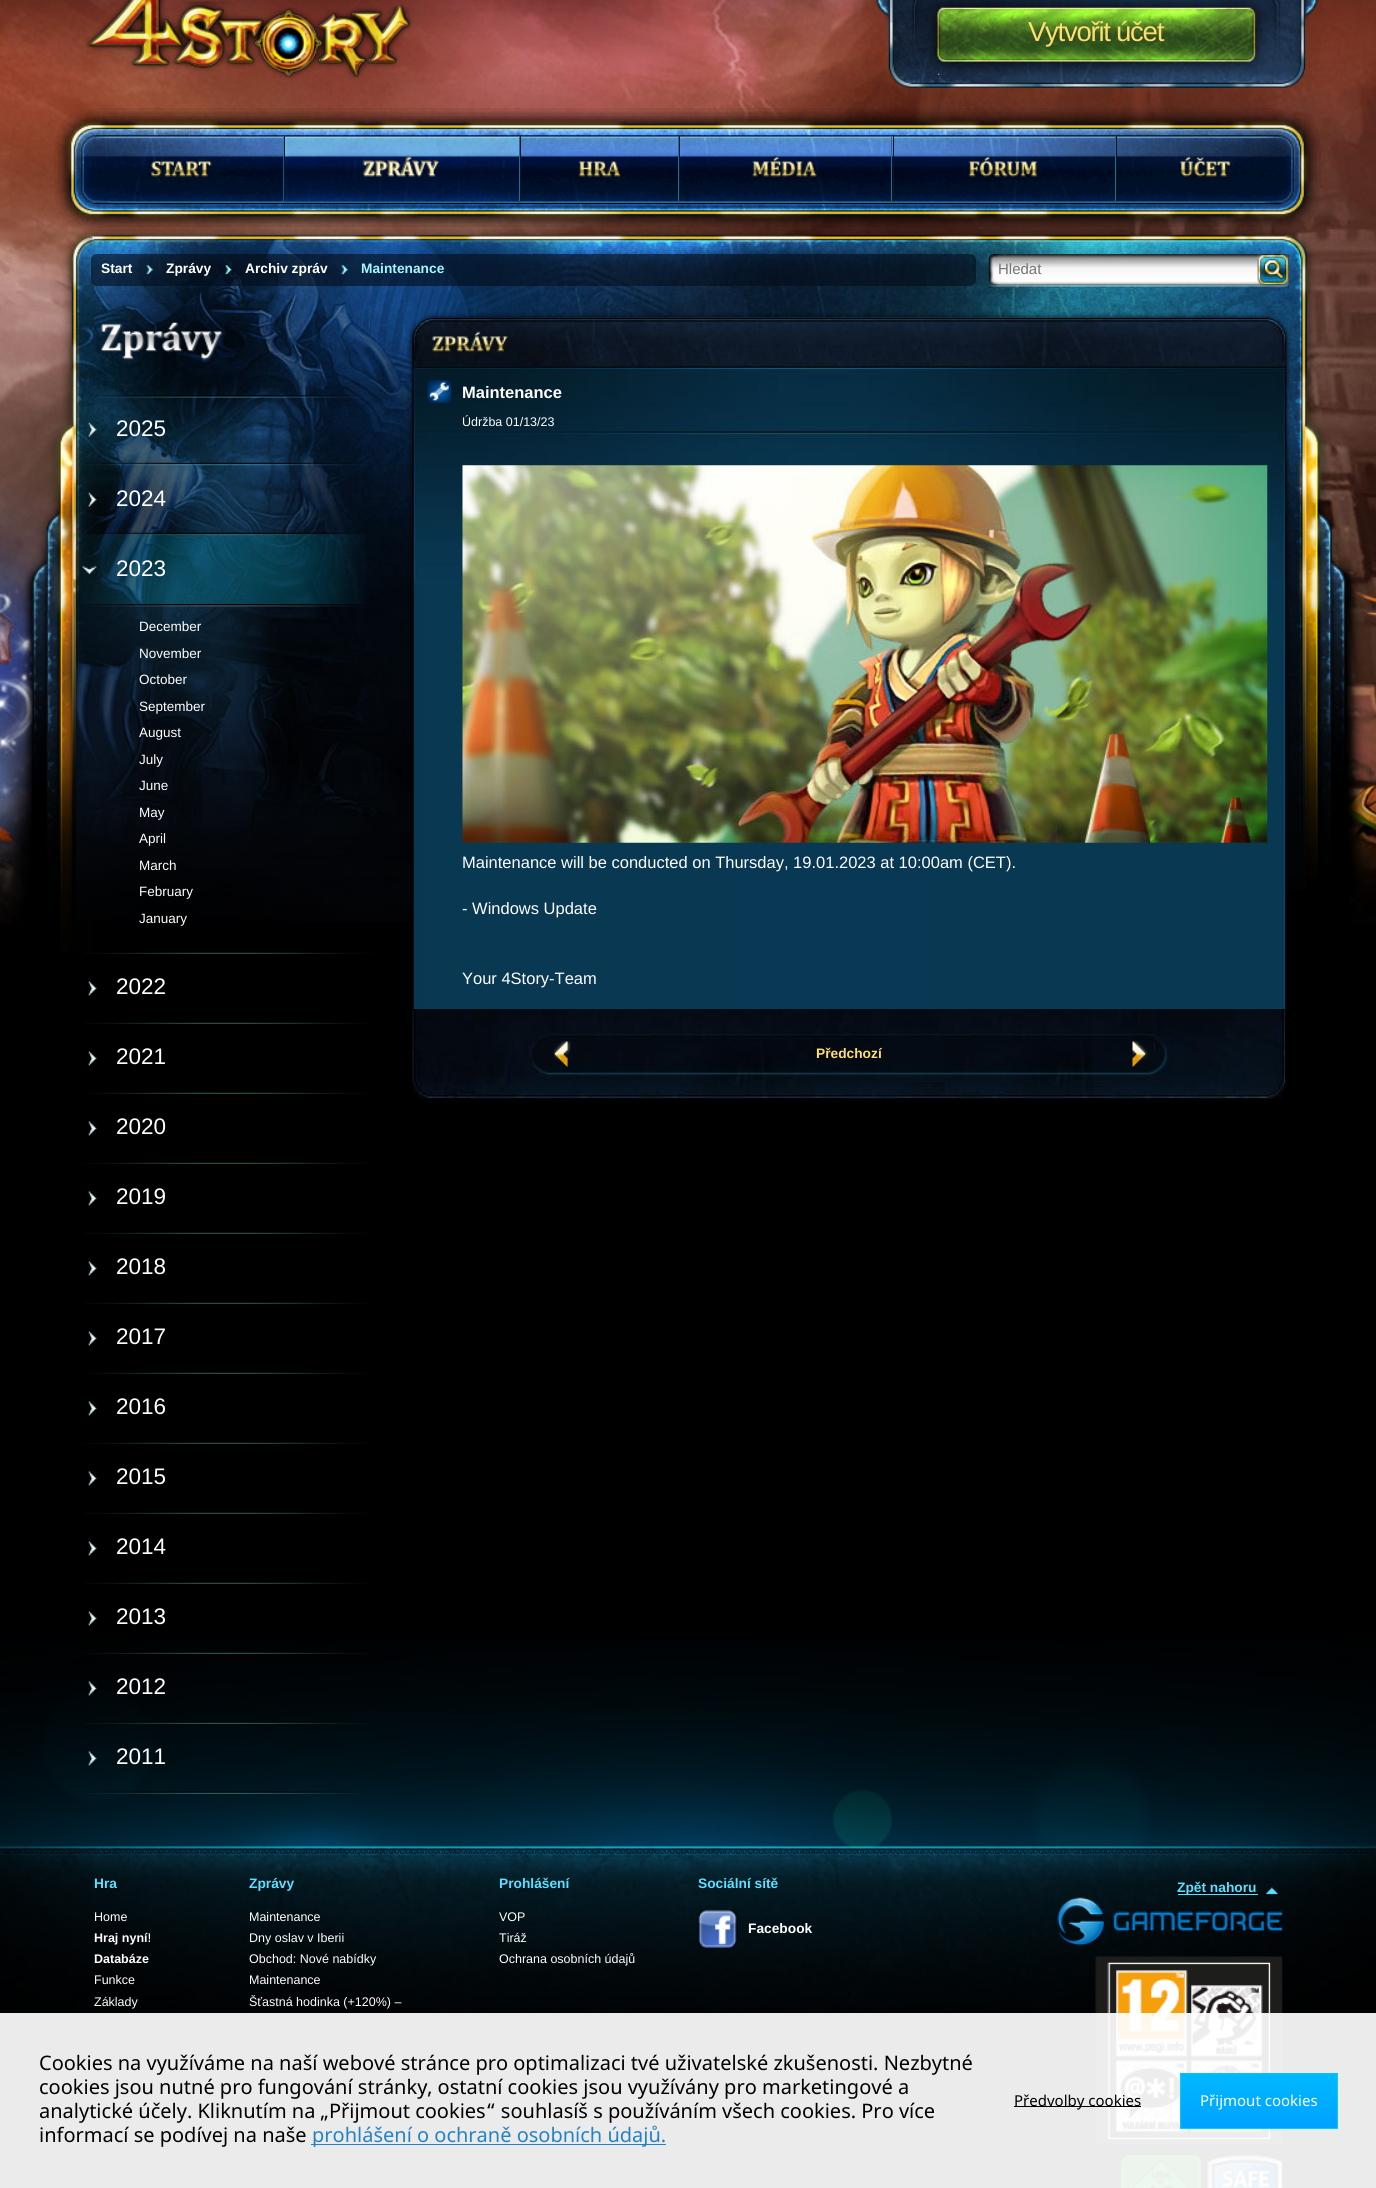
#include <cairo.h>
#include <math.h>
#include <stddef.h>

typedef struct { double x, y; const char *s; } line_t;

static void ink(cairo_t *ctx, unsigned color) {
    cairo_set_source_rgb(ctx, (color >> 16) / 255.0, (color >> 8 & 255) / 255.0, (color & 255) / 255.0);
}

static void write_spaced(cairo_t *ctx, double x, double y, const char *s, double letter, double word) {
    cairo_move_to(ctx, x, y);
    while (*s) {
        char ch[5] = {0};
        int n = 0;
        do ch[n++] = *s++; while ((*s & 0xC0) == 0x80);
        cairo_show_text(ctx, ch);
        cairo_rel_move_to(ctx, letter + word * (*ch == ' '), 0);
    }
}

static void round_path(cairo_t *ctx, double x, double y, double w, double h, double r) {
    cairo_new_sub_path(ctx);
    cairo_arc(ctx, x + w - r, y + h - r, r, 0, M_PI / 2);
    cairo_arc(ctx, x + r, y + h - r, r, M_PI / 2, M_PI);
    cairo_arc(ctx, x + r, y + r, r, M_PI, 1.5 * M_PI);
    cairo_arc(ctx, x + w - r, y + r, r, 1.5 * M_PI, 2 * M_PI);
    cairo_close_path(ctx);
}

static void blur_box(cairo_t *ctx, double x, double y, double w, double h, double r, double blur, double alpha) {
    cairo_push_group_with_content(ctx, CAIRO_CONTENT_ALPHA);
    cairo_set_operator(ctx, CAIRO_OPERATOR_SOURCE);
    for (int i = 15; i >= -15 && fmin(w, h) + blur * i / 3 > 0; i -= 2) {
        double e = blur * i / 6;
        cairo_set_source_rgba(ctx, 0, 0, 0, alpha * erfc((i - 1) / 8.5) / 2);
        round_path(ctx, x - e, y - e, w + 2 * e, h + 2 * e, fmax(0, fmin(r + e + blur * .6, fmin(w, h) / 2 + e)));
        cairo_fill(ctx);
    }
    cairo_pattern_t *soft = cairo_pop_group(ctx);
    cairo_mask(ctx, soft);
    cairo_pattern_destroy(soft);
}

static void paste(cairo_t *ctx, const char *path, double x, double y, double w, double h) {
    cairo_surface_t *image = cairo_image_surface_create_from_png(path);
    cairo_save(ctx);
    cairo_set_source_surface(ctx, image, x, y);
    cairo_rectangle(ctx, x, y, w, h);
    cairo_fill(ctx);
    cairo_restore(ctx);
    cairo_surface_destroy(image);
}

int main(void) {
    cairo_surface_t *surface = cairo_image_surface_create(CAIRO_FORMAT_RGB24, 1376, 2188);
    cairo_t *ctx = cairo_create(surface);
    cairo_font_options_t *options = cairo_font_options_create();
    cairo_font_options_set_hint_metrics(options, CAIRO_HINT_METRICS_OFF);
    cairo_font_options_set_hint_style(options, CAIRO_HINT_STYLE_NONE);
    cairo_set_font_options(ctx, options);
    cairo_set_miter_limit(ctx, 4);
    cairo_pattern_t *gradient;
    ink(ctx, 0x000000);
    cairo_paint(ctx);
    paste(ctx, "media/1.png", 0, 0, 1376, 925);
    paste(ctx, "media/2.png", 54, 108, 1267, 124);
    paste(ctx, "media/3.png", 85, 0, 328, 80);
    ink(ctx, 0x206A9C);
    cairo_rectangle(ctx, 283, 136, 1, 65);
    cairo_fill(ctx);
    paste(ctx, "media/4.png", 150, 160, 63, 18);
    paste(ctx, "media/5.png", 283, 136, 237, 66);
    cairo_rectangle(ctx, 519, 136, 1, 65);
    cairo_fill(ctx);
    ink(ctx, 0x0C181F);
    cairo_rectangle(ctx, 284, 136, 1, 65);
    cairo_fill(ctx);
    paste(ctx, "media/6.png", 362, 155, 77, 22);
    ink(ctx, 0x206A9C);
    cairo_rectangle(ctx, 678, 136, 1, 65);
    cairo_fill(ctx);
    ink(ctx, 0x0C181F);
    cairo_rectangle(ctx, 520, 136, 1, 65);
    cairo_fill(ctx);
    paste(ctx, "media/7.png", 578, 160, 43, 18);
    ink(ctx, 0x206A9C);
    cairo_rectangle(ctx, 891, 136, 1, 65);
    cairo_fill(ctx);
    ink(ctx, 0x0C181F);
    cairo_rectangle(ctx, 679, 136, 1, 65);
    cairo_fill(ctx);
    paste(ctx, "media/8.png", 752, 155, 65, 23);
    ink(ctx, 0x206A9C);
    cairo_rectangle(ctx, 1115, 136, 1, 65);
    cairo_fill(ctx);
    ink(ctx, 0x0C181F);
    cairo_rectangle(ctx, 893, 136, 1, 65);
    cairo_fill(ctx);
    paste(ctx, "media/9.png", 968, 155, 71, 23);
    cairo_rectangle(ctx, 1116, 136, 1, 65);
    cairo_fill(ctx);
    paste(ctx, "media/10.png", 1180, 155, 52, 23);
    paste(ctx, "media/11.png", 876, 0, 442, 88);
    cairo_select_font_face(ctx, "Liberation Sans", CAIRO_FONT_SLANT_NORMAL, CAIRO_FONT_WEIGHT_NORMAL);
    cairo_set_font_size(ctx, 27.5);
    ink(ctx, 0xFFDE70);
    write_spaced(ctx, 1028, 41, "Vytvořit účet", -1.25, 0);
    cairo_set_font_size(ctx, 13);
    ink(ctx, 0x9AA7AA);
    write_spaced(ctx, 937, 75, ".", -1.25, 0);
    paste(ctx, "media/12.png", 92, 235, 1193, 687);
    paste(ctx, "media/13.png", 7, 235, 87, 718);
    cairo_set_source_rgba(ctx, 0.016, 0.047, 0.102, 0.6);
    round_path(ctx, 91, 254, 885, 32, 6);
    cairo_fill(ctx);
    cairo_select_font_face(ctx, "Liberation Sans", CAIRO_FONT_SLANT_NORMAL, CAIRO_FONT_WEIGHT_BOLD);
    cairo_set_font_size(ctx, 13.75);
    ink(ctx, 0xFFFFFF);
    cairo_move_to(ctx, 101, 273);
    cairo_show_text(ctx, "Start");
    paste(ctx, "media/14.png", 146, 265, 7, 10);
    paste(ctx, "media/15.png", 172, 260, 60, 15);
    cairo_move_to(ctx, 166, 273);
    cairo_show_text(ctx, "Zprávy");
    paste(ctx, "media/16.png", 273, 260, 75, 15);
    cairo_move_to(ctx, 245, 273);
    cairo_show_text(ctx, "Archiv zpráv");
    ink(ctx, 0xA4F7FF);
    cairo_move_to(ctx, 361, 273);
    cairo_show_text(ctx, "Maintenance");
    paste(ctx, "media/19.png", 1285, 235, 83, 655);
    ink(ctx, 0x02090D);
    cairo_rectangle(ctx, 989, 254, 300, 34);
    cairo_fill(ctx);
    paste(ctx, "media/17.png", 988, 254, 301, 34);
    cairo_select_font_face(ctx, "Liberation Sans", CAIRO_FONT_SLANT_NORMAL, CAIRO_FONT_WEIGHT_NORMAL);
    cairo_set_font_size(ctx, 15);
    ink(ctx, 0x757575);
    cairo_move_to(ctx, 998, 274);
    cairo_show_text(ctx, "Hledat");
    paste(ctx, "media/18.png", 1257, 254, 32, 32);
    paste(ctx, "media/20.png", 101, 322, 122, 39);
    paste(ctx, "media/21.png", 84, 395, 287, 3);
    paste(ctx, "media/22.png", 85, 462, 282, 4);
    paste(ctx, "media/23.png", 88, 422, 9, 15);
    cairo_set_font_size(ctx, 22.5);
    ink(ctx, 0xFFFFFF);
    cairo_move_to(ctx, 116, 436);
    cairo_show_text(ctx, "2025");
    paste(ctx, "media/24.png", 87, 532, 277, 4);
    paste(ctx, "media/25.png", 88, 492, 9, 15);
    cairo_move_to(ctx, 116, 506);
    cairo_show_text(ctx, "2024");
    paste(ctx, "media/26.png", 84, 766, 289, 188);
    paste(ctx, "media/27.png", 80, 535, 286, 69);
    paste(ctx, "media/28.png", 82, 565, 15, 10);
    cairo_move_to(ctx, 116, 576);
    cairo_show_text(ctx, "2023");
    paste(ctx, "media/29.png", 90, 604, 268, 3);
    cairo_set_font_size(ctx, 13.5);
    {
        static const line_t items[] = {
            {139, 631, "December"},
            {139, 658, "November"},
            {139, 684, "October"},
            {139, 711, "September"},
            {139, 737, "August"},
            {139, 764, "July"},
            {139, 790, "June"},
            {139, 817, "May"},
            {139, 843, "April"},
            {139, 870, "March"},
            {139, 896, "February"},
            {139, 923, "January"},
        };
        for (size_t i = 0; i < sizeof items / sizeof *items; i++) {
            cairo_move_to(ctx, items[i].x, items[i].y);
            cairo_show_text(ctx, items[i].s);
        }
    }
    paste(ctx, "media/30.png", 84, 1022, 283, 2);
    paste(ctx, "media/31.png", 88, 981, 9, 15);
    cairo_set_font_size(ctx, 22.5);
    cairo_move_to(ctx, 116, 994);
    cairo_show_text(ctx, "2022");
    paste(ctx, "media/30.png", 84, 1092, 283, 2);
    paste(ctx, "media/31.png", 88, 1051, 9, 15);
    cairo_move_to(ctx, 116, 1064);
    cairo_show_text(ctx, "2021");
    paste(ctx, "media/30.png", 84, 1162, 283, 2);
    paste(ctx, "media/31.png", 88, 1121, 9, 15);
    cairo_move_to(ctx, 116, 1134);
    cairo_show_text(ctx, "2020");
    paste(ctx, "media/30.png", 84, 1232, 283, 2);
    paste(ctx, "media/31.png", 88, 1191, 9, 15);
    cairo_move_to(ctx, 116, 1204);
    cairo_show_text(ctx, "2019");
    paste(ctx, "media/30.png", 84, 1302, 283, 2);
    paste(ctx, "media/31.png", 88, 1261, 9, 15);
    cairo_move_to(ctx, 116, 1274);
    cairo_show_text(ctx, "2018");
    paste(ctx, "media/30.png", 84, 1372, 283, 2);
    paste(ctx, "media/31.png", 88, 1331, 9, 15);
    cairo_move_to(ctx, 116, 1344);
    cairo_show_text(ctx, "2017");
    paste(ctx, "media/30.png", 84, 1442, 283, 2);
    paste(ctx, "media/31.png", 88, 1401, 9, 15);
    cairo_move_to(ctx, 116, 1414);
    cairo_show_text(ctx, "2016");
    paste(ctx, "media/30.png", 84, 1512, 283, 2);
    paste(ctx, "media/31.png", 88, 1471, 9, 15);
    cairo_move_to(ctx, 116, 1484);
    cairo_show_text(ctx, "2015");
    paste(ctx, "media/30.png", 84, 1582, 283, 2);
    paste(ctx, "media/31.png", 88, 1541, 9, 15);
    cairo_move_to(ctx, 116, 1554);
    cairo_show_text(ctx, "2014");
    paste(ctx, "media/46.png", 0, 1639, 1376, 402);
    paste(ctx, "media/32.png", 84, 1652, 283, 2);
    paste(ctx, "media/31.png", 88, 1611, 9, 15);
    cairo_move_to(ctx, 116, 1624);
    cairo_show_text(ctx, "2013");
    paste(ctx, "media/33.png", 84, 1721, 283, 3);
    paste(ctx, "media/34.png", 88, 1681, 9, 15);
    cairo_move_to(ctx, 116, 1694);
    cairo_show_text(ctx, "2012");
    paste(ctx, "media/35.png", 84, 1791, 283, 3);
    paste(ctx, "media/36.png", 88, 1751, 9, 15);
    cairo_move_to(ctx, 116, 1764);
    cairo_show_text(ctx, "2011");
    ink(ctx, 0x000000);
    blur_box(ctx, 413, 318, 873, 781, 21, 3, 1);
    paste(ctx, "media/37.png", 412, 318, 875, 764);
    paste(ctx, "media/38.png", 412, 317, 875, 50);
    paste(ctx, "media/39.png", 431, 331, 78, 21);
    paste(ctx, "media/40.png", 412, 366, 875, 217);
    paste(ctx, "media/41.png", 427, 380, 25, 23);
    cairo_select_font_face(ctx, "Liberation Sans", CAIRO_FONT_SLANT_NORMAL, CAIRO_FONT_WEIGHT_BOLD);
    cairo_set_font_size(ctx, 16.5);
    ink(ctx, 0xFFFFFF);
    cairo_move_to(ctx, 462, 398);
    cairo_show_text(ctx, "Maintenance");
    cairo_select_font_face(ctx, "Liberation Sans", CAIRO_FONT_SLANT_NORMAL, CAIRO_FONT_WEIGHT_NORMAL);
    cairo_set_font_size(ctx, 12.5);
    cairo_move_to(ctx, 462, 426);
    cairo_show_text(ctx, "Údržba 01/13/23");
    paste(ctx, "media/42.png", 462, 465, 806, 378);
    cairo_set_font_size(ctx, 16.5);
    {
        static const line_t items[] = {
            {462, 868, "Maintenance will be conducted on Thursday, 19.01.2023 at 10:00am (CET)."},
            {462, 914, "- Windows Update"},
            {462, 984, "Your 4Story-Team"},
        };
        for (size_t i = 0; i < sizeof items / sizeof *items; i++) {
            cairo_move_to(ctx, items[i].x, items[i].y);
            cairo_show_text(ctx, items[i].s);
        }
    }
    paste(ctx, "media/43.png", 412, 1009, 874, 90);
    paste(ctx, "media/44.png", 553, 1041, 18, 26);
    cairo_select_font_face(ctx, "Liberation Sans", CAIRO_FONT_SLANT_NORMAL, CAIRO_FONT_WEIGHT_BOLD);
    cairo_set_font_size(ctx, 13.75);
    ink(ctx, 0xFFDE70);
    cairo_move_to(ctx, 816, 1058);
    cairo_show_text(ctx, "Předchozí");
    paste(ctx, "media/45.png", 1132, 1041, 23, 26);
    ink(ctx, 0x5DDFFF);
    cairo_move_to(ctx, 94, 1888);
    cairo_show_text(ctx, "Hra");
    cairo_select_font_face(ctx, "Liberation Sans", CAIRO_FONT_SLANT_NORMAL, CAIRO_FONT_WEIGHT_NORMAL);
    cairo_set_font_size(ctx, 12.5);
    ink(ctx, 0xFFFFFF);
    cairo_move_to(ctx, 94, 1921);
    cairo_show_text(ctx, "Home");
    cairo_select_font_face(ctx, "Liberation Sans", CAIRO_FONT_SLANT_NORMAL, CAIRO_FONT_WEIGHT_BOLD);
    cairo_move_to(ctx, 94, 1942);
    cairo_show_text(ctx, "Hraj nyní!");
    cairo_move_to(ctx, 94, 1963);
    cairo_show_text(ctx, "Databáze");
    cairo_select_font_face(ctx, "Liberation Sans", CAIRO_FONT_SLANT_NORMAL, CAIRO_FONT_WEIGHT_NORMAL);
    cairo_move_to(ctx, 94, 1984);
    cairo_show_text(ctx, "Funkce");
    cairo_move_to(ctx, 94, 2006);
    cairo_show_text(ctx, "Základy");
    cairo_select_font_face(ctx, "Liberation Sans", CAIRO_FONT_SLANT_NORMAL, CAIRO_FONT_WEIGHT_BOLD);
    cairo_set_font_size(ctx, 13.75);
    ink(ctx, 0x5DDFFF);
    cairo_move_to(ctx, 249, 1888);
    cairo_show_text(ctx, "Zprávy");
    cairo_select_font_face(ctx, "Liberation Sans", CAIRO_FONT_SLANT_NORMAL, CAIRO_FONT_WEIGHT_NORMAL);
    cairo_set_font_size(ctx, 12.5);
    ink(ctx, 0xFFFFFF);
    {
        static const line_t items[] = {
            {249, 1921, "Maintenance"},
            {249, 1942, "Dny oslav v Iberii"},
            {249, 1963, "Obchod: Nové nabídky"},
            {249, 1984, "Maintenance"},
            {249, 2006, "Šťastná hodinka (+120%) –"},
        };
        for (size_t i = 0; i < sizeof items / sizeof *items; i++) {
            cairo_move_to(ctx, items[i].x, items[i].y);
            cairo_show_text(ctx, items[i].s);
        }
    }
    cairo_select_font_face(ctx, "Liberation Sans", CAIRO_FONT_SLANT_NORMAL, CAIRO_FONT_WEIGHT_BOLD);
    cairo_set_font_size(ctx, 13.75);
    ink(ctx, 0x5DDFFF);
    cairo_move_to(ctx, 499, 1888);
    cairo_show_text(ctx, "Prohlášení");
    cairo_select_font_face(ctx, "Liberation Sans", CAIRO_FONT_SLANT_NORMAL, CAIRO_FONT_WEIGHT_NORMAL);
    cairo_set_font_size(ctx, 12.5);
    ink(ctx, 0xFFFFFF);
    {
        static const line_t items[] = {
            {499, 1921, "VOP"},
            {499, 1942, "Tiráž"},
            {499, 1963, "Ochrana osobních údajů"},
        };
        for (size_t i = 0; i < sizeof items / sizeof *items; i++) {
            cairo_move_to(ctx, items[i].x, items[i].y);
            cairo_show_text(ctx, items[i].s);
        }
    }
    cairo_select_font_face(ctx, "Liberation Sans", CAIRO_FONT_SLANT_NORMAL, CAIRO_FONT_WEIGHT_BOLD);
    cairo_set_font_size(ctx, 13.75);
    ink(ctx, 0x5DDFFF);
    cairo_move_to(ctx, 698, 1888);
    cairo_show_text(ctx, "Sociální sítě");
    paste(ctx, "media/47.png", 697, 1910, 41, 38);
    ink(ctx, 0xFFFFFF);
    cairo_move_to(ctx, 748, 1933);
    cairo_show_text(ctx, "Facebook");
    ink(ctx, 0x5DDFFF);
    cairo_rectangle(ctx, 1178, 1894, 80, 1);
    cairo_fill(ctx);
    cairo_move_to(ctx, 1177, 1892);
    cairo_show_text(ctx, "Zpět nahoru");
    paste(ctx, "media/48.png", 1266, 1887, 13, 8);
    paste(ctx, "media/49.png", 1057, 1897, 226, 49);
    paste(ctx, "media/50.png", 1095, 1956, 188, 188);
    paste(ctx, "media/51.png", 1121, 2155, 81, 33);
    paste(ctx, "media/52.png", 1207, 2155, 76, 33);
    cairo_set_source_rgba(ctx, 1, 1, 1, 0.92);
    cairo_rectangle(ctx, 0, 2013, 1376, 175);
    cairo_fill(ctx);
    cairo_select_font_face(ctx, "Noto Sans", CAIRO_FONT_SLANT_NORMAL, CAIRO_FONT_WEIGHT_NORMAL);
    cairo_set_font_size(ctx, 20);
    ink(ctx, 0x000000);
    {
        static const line_t items[] = {
            {39, 2070, "Cookies na využíváme na naší webové stránce pro optimalizaci tvé uživatelské zkušenosti. Nezbytné"},
            {39, 2094, "cookies jsou nutné pro fungování stránky, ostatní cookies jsou využívány pro marketingové a"},
            {39, 2118, "analytické účely. Kliknutím na „Přijmout cookies“ souhlasíš s používáním všech cookies. Pro více"},
            {39, 2142, "informací se podívej na naše"},
        };
        for (size_t i = 0; i < sizeof items / sizeof *items; i++) {
            cairo_move_to(ctx, items[i].x, items[i].y);
            cairo_show_text(ctx, items[i].s);
        }
    }
    ink(ctx, 0x2383C5);
    cairo_rectangle(ctx, 311, 2144, 355, 1);
    cairo_fill(ctx);
    cairo_move_to(ctx, 312, 2142);
    cairo_show_text(ctx, "prohlášení o ochraně osobních údajů.");
    ink(ctx, 0x000000);
    cairo_rectangle(ctx, 1014, 2106, 127, 1);
    cairo_fill(ctx);
    cairo_set_font_size(ctx, 15);
    cairo_move_to(ctx, 1014, 2106);
    cairo_show_text(ctx, "Předvolby cookies");
    gradient = cairo_pattern_create_linear(1259, 2020, 1259, 2074);
    cairo_pattern_add_color_stop_rgba(gradient, 0, 0, 0.722, 1, 1);
    cairo_pattern_add_color_stop_rgba(gradient, 1, 0, 0.635, 1, 1);
    cairo_set_source(ctx, gradient);
    cairo_pattern_destroy(gradient);
    cairo_rectangle(ctx, 1180, 2073, 158, 1);
    cairo_fill(ctx);
    gradient = cairo_pattern_create_linear(1259, 2074, 1259, 2128);
    cairo_pattern_add_color_stop_rgba(gradient, 0, 0, 0.722, 1, 1);
    cairo_pattern_add_color_stop_rgba(gradient, 1, 0, 0.635, 1, 1);
    cairo_set_source(ctx, gradient);
    cairo_pattern_destroy(gradient);
    cairo_rectangle(ctx, 1180, 2074, 158, 54);
    cairo_fill(ctx);
    gradient = cairo_pattern_create_linear(1259, 2128, 1259, 2181);
    cairo_pattern_add_color_stop_rgba(gradient, 0, 0, 0.722, 1, 1);
    cairo_pattern_add_color_stop_rgba(gradient, 1, 0, 0.635, 1, 1);
    cairo_set_source(ctx, gradient);
    cairo_pattern_destroy(gradient);
    cairo_rectangle(ctx, 1180, 2128, 158, 1);
    cairo_fill(ctx);
    cairo_rectangle(ctx, 1180.5, 2073.5, 157, 55);
    cairo_set_source_rgba(ctx, 0, 0.973, 1, 0.4);
    cairo_set_line_width(ctx, 1);
    cairo_stroke(ctx);
    ink(ctx, 0xFFFFFF);
    cairo_move_to(ctx, 1200, 2106);
    cairo_show_text(ctx, "Přijmout cookies");
    cairo_surface_write_to_png(surface, "image.png");
    cairo_font_options_destroy(options);
    cairo_destroy(ctx);
    cairo_surface_destroy(surface);
    return 0;
}
